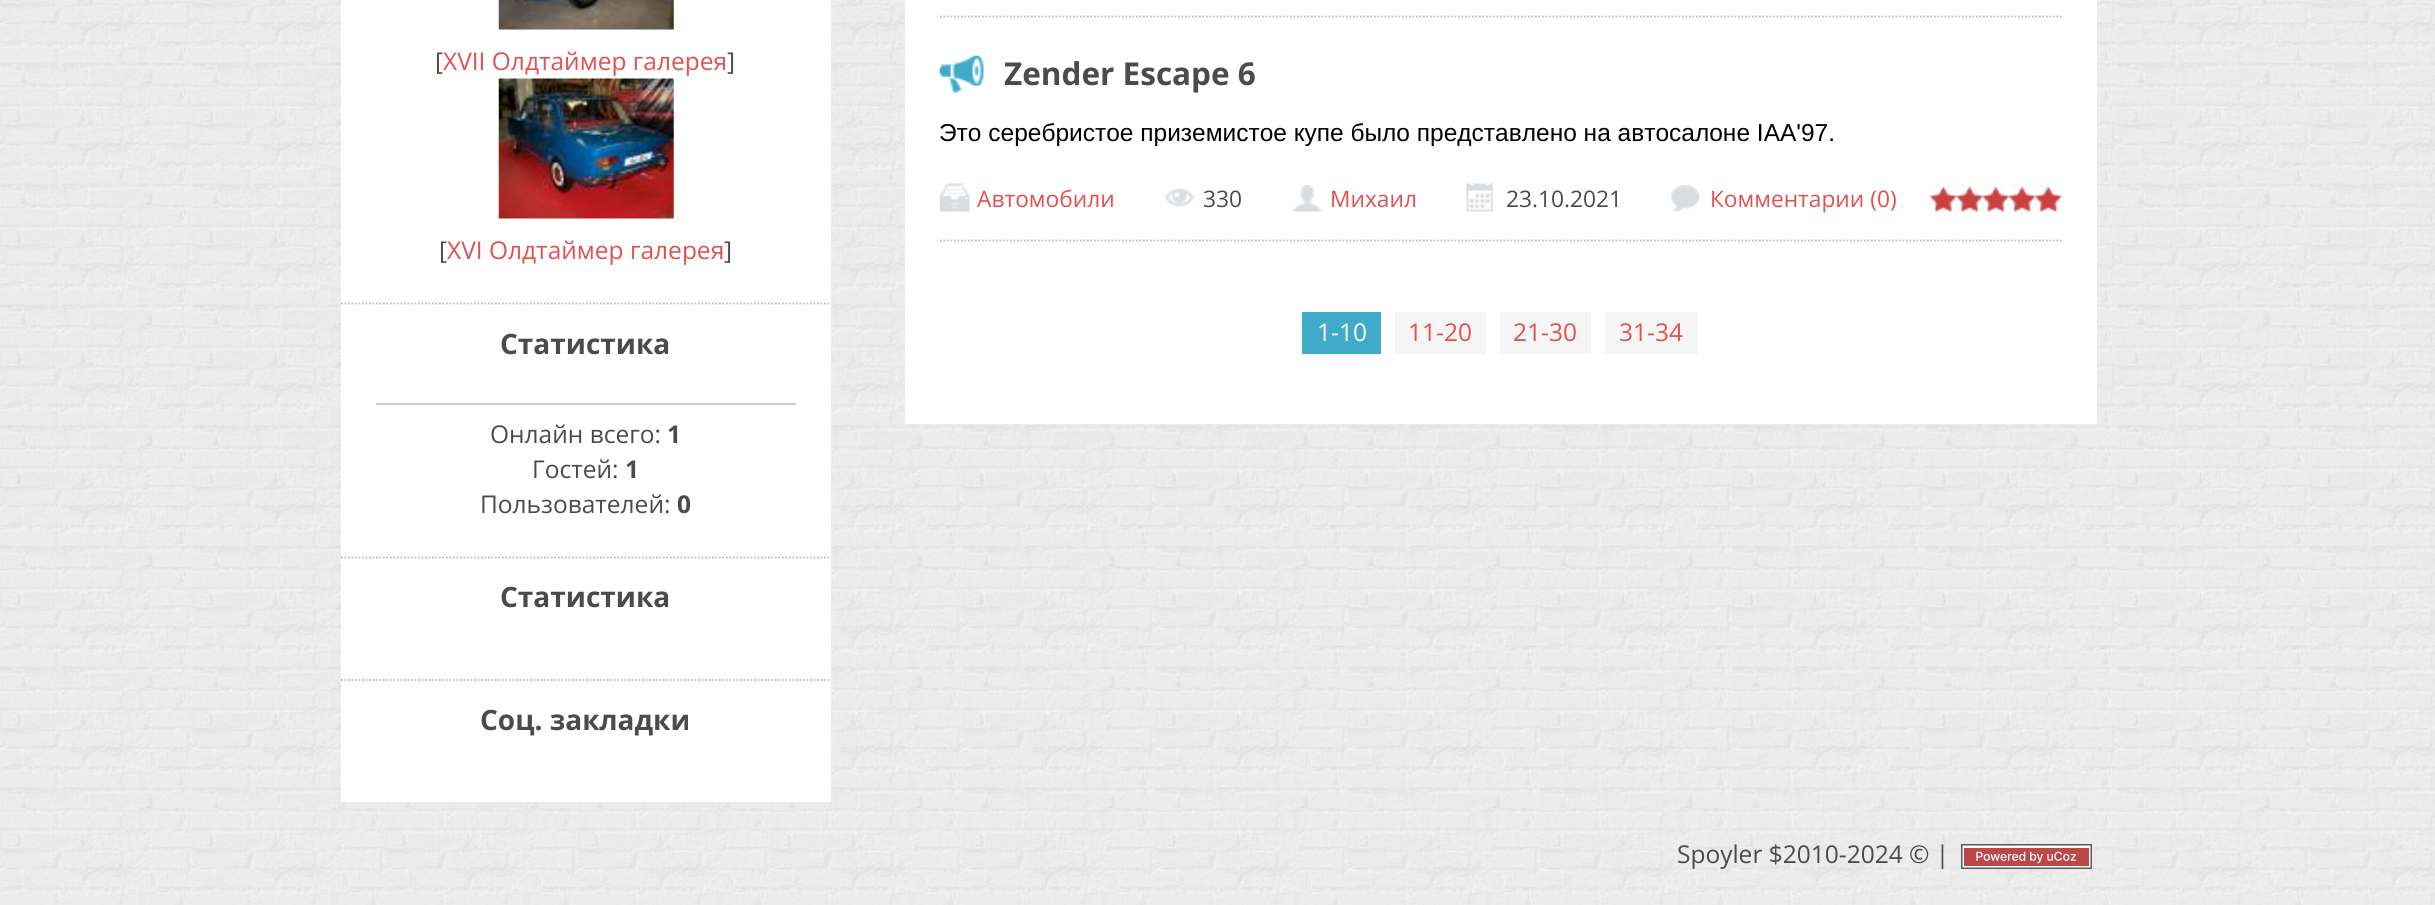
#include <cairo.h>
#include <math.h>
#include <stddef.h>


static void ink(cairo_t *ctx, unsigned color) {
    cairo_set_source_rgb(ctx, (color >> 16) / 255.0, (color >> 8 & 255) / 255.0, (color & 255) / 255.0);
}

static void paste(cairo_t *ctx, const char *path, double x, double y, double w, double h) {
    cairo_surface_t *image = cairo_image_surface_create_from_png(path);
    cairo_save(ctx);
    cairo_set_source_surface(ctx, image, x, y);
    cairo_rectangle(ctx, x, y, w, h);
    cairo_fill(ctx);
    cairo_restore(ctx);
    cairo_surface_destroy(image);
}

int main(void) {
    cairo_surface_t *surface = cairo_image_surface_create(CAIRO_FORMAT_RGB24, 2435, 905);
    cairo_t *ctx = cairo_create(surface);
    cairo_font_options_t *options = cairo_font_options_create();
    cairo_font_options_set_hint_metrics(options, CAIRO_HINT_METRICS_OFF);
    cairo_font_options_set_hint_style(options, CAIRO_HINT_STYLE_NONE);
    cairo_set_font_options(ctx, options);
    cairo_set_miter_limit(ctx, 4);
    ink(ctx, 0xFFFFFF);
    cairo_paint(ctx);
    paste(ctx, "media/1.png", 0, 0, 2435, 905);
    ink(ctx, 0xFFFFFF);
    cairo_rectangle(ctx, 341, 0, 490, 802);
    cairo_fill(ctx);
    cairo_new_path(ctx);
    cairo_move_to(ctx, 341, 303.5);
    cairo_line_to(ctx, 831, 303.5);
    ink(ctx, 0xBBBBBB);
    cairo_set_line_width(ctx, 1.8);
    cairo_set_dash(ctx, (double[]){1.75, 1.75}, 2, 0);
    cairo_stroke(ctx);
    paste(ctx, "media/2.png", 498, 0, 176, 30);
    cairo_select_font_face(ctx, "Open Sans", CAIRO_FONT_SLANT_NORMAL, CAIRO_FONT_WEIGHT_NORMAL);
    cairo_set_font_size(ctx, 24.5);
    ink(ctx, 0x4B4B4B);
    cairo_move_to(ctx, 435, 70);
    cairo_show_text(ctx, "[");
    ink(ctx, 0xE25151);
    cairo_move_to(ctx, 443, 70);
    cairo_show_text(ctx, "XVII Олдтаймер галерея");
    ink(ctx, 0x4B4B4B);
    cairo_move_to(ctx, 727, 70);
    cairo_show_text(ctx, "]");
    paste(ctx, "media/3.png", 498, 78, 176, 141);
    cairo_move_to(ctx, 439, 259);
    cairo_show_text(ctx, "[");
    ink(ctx, 0xE25151);
    cairo_move_to(ctx, 447, 259);
    cairo_show_text(ctx, "XVI Олдтаймер галерея");
    ink(ctx, 0x4B4B4B);
    cairo_move_to(ctx, 724, 259);
    cairo_show_text(ctx, "]");
    cairo_new_path(ctx);
    cairo_move_to(ctx, 341, 557.5);
    cairo_line_to(ctx, 831, 557.5);
    ink(ctx, 0xBBBBBB);
    cairo_stroke(ctx);
    cairo_select_font_face(ctx, "Open Sans", CAIRO_FONT_SLANT_NORMAL, CAIRO_FONT_WEIGHT_BOLD);
    cairo_set_font_size(ctx, 28);
    ink(ctx, 0x4B4B4B);
    cairo_move_to(ctx, 500, 354);
    cairo_show_text(ctx, "Статистика");
    ink(ctx, 0xCCCCCC);
    cairo_rectangle(ctx, 376, 403, 420, 2);
    cairo_fill(ctx);
    cairo_select_font_face(ctx, "Open Sans", CAIRO_FONT_SLANT_NORMAL, CAIRO_FONT_WEIGHT_NORMAL);
    cairo_set_font_size(ctx, 24.5);
    ink(ctx, 0x4B4B4B);
    cairo_move_to(ctx, 490, 443);
    cairo_show_text(ctx, "Онлайн всего:");
    cairo_select_font_face(ctx, "Open Sans", CAIRO_FONT_SLANT_NORMAL, CAIRO_FONT_WEIGHT_BOLD);
    cairo_move_to(ctx, 667, 443);
    cairo_show_text(ctx, "1");
    cairo_select_font_face(ctx, "Open Sans", CAIRO_FONT_SLANT_NORMAL, CAIRO_FONT_WEIGHT_NORMAL);
    cairo_move_to(ctx, 532, 478);
    cairo_show_text(ctx, "Гостей:");
    cairo_select_font_face(ctx, "Open Sans", CAIRO_FONT_SLANT_NORMAL, CAIRO_FONT_WEIGHT_BOLD);
    cairo_move_to(ctx, 625, 478);
    cairo_show_text(ctx, "1");
    cairo_select_font_face(ctx, "Open Sans", CAIRO_FONT_SLANT_NORMAL, CAIRO_FONT_WEIGHT_NORMAL);
    cairo_move_to(ctx, 480, 513);
    cairo_show_text(ctx, "Пользователей:");
    cairo_select_font_face(ctx, "Open Sans", CAIRO_FONT_SLANT_NORMAL, CAIRO_FONT_WEIGHT_BOLD);
    cairo_move_to(ctx, 677, 513);
    cairo_show_text(ctx, "0");
    cairo_new_path(ctx);
    cairo_move_to(ctx, 341, 680);
    cairo_line_to(ctx, 831, 680);
    ink(ctx, 0xBBBBBB);
    cairo_stroke(ctx);
    cairo_set_font_size(ctx, 28);
    ink(ctx, 0x4B4B4B);
    cairo_move_to(ctx, 500, 607);
    cairo_show_text(ctx, "Статистика");
    cairo_move_to(ctx, 480, 730);
    cairo_show_text(ctx, "Соц. закладки");
    ink(ctx, 0xFFFFFF);
    cairo_rectangle(ctx, 905, 0, 1192, 424);
    cairo_fill(ctx);
    cairo_new_path(ctx);
    cairo_move_to(ctx, 940, 16.5);
    cairo_line_to(ctx, 2061.5, 16.5);
    ink(ctx, 0xBBBBBB);
    cairo_stroke(ctx);
    cairo_new_path(ctx);
    cairo_move_to(ctx, 940, 240.5);
    cairo_line_to(ctx, 2061.5, 240.5);
    cairo_stroke(ctx);
    paste(ctx, "media/4.png", 939, 55, 45, 38);
    cairo_set_font_size(ctx, 31.5);
    ink(ctx, 0x4B4B4B);
    cairo_move_to(ctx, 1004, 85);
    cairo_show_text(ctx, "Zender Escape 6");
    cairo_select_font_face(ctx, "Liberation Sans", CAIRO_FONT_SLANT_NORMAL, CAIRO_FONT_WEIGHT_NORMAL);
    cairo_set_font_size(ctx, 24.5);
    ink(ctx, 0x000000);
    cairo_move_to(ctx, 939, 141);
    cairo_show_text(ctx, "Это серебристое приземистое купе было представлено на автосалоне IAA'97.");
    paste(ctx, "media/5.png", 939, 183, 31, 29);
    cairo_select_font_face(ctx, "Open Sans", CAIRO_FONT_SLANT_NORMAL, CAIRO_FONT_WEIGHT_NORMAL);
    cairo_set_font_size(ctx, 22.75);
    ink(ctx, 0xE25151);
    cairo_move_to(ctx, 977, 207);
    cairo_show_text(ctx, "Автомобили");
    paste(ctx, "media/6.png", 1165, 188, 29, 19);
    ink(ctx, 0x4B4B4B);
    cairo_move_to(ctx, 1203, 207);
    cairo_show_text(ctx, "330");
    paste(ctx, "media/7.png", 1293, 185, 29, 27);
    ink(ctx, 0xE25151);
    cairo_move_to(ctx, 1330, 207);
    cairo_show_text(ctx, "Михаил");
    paste(ctx, "media/8.png", 1466, 183, 27, 29);
    ink(ctx, 0x4B4B4B);
    cairo_move_to(ctx, 1506, 207);
    cairo_show_text(ctx, "23.10.2021");
    paste(ctx, "media/9.png", 1671, 185, 29, 27);
    ink(ctx, 0xE25151);
    cairo_move_to(ctx, 1710, 207);
    cairo_show_text(ctx, "Комментарии (0)");
    paste(ctx, "media/10.png", 1930, 187, 132, 24);
    paste(ctx, "media/11.png", 1930, 185, 132, 27);
    ink(ctx, 0x40AACB);
    cairo_rectangle(ctx, 1302, 312, 79, 42);
    cairo_fill(ctx);
    cairo_set_font_size(ctx, 24.5);
    ink(ctx, 0xFFFFFF);
    cairo_move_to(ctx, 1317, 341);
    cairo_show_text(ctx, "1-10");
    ink(ctx, 0xF5F5F5);
    cairo_rectangle(ctx, 1395, 312, 91, 42);
    cairo_fill(ctx);
    ink(ctx, 0xE25151);
    cairo_move_to(ctx, 1408, 341);
    cairo_show_text(ctx, "11-20");
    ink(ctx, 0xF5F5F5);
    cairo_rectangle(ctx, 1500, 312, 91, 42);
    cairo_fill(ctx);
    ink(ctx, 0xE25151);
    cairo_move_to(ctx, 1513, 341);
    cairo_show_text(ctx, "21-30");
    ink(ctx, 0xF5F5F5);
    cairo_rectangle(ctx, 1605, 312, 93, 42);
    cairo_fill(ctx);
    ink(ctx, 0xE25151);
    cairo_move_to(ctx, 1619, 341);
    cairo_show_text(ctx, "31-34");
    ink(ctx, 0x4B4B4B);
    cairo_move_to(ctx, 1677, 863);
    cairo_show_text(ctx, "Spoyler $2010-2024 © |");
    paste(ctx, "media/12.png", 1961, 844, 131, 25);
    cairo_surface_write_to_png(surface, "image.png");
    cairo_font_options_destroy(options);
    cairo_destroy(ctx);
    cairo_surface_destroy(surface);
    return 0;
}
